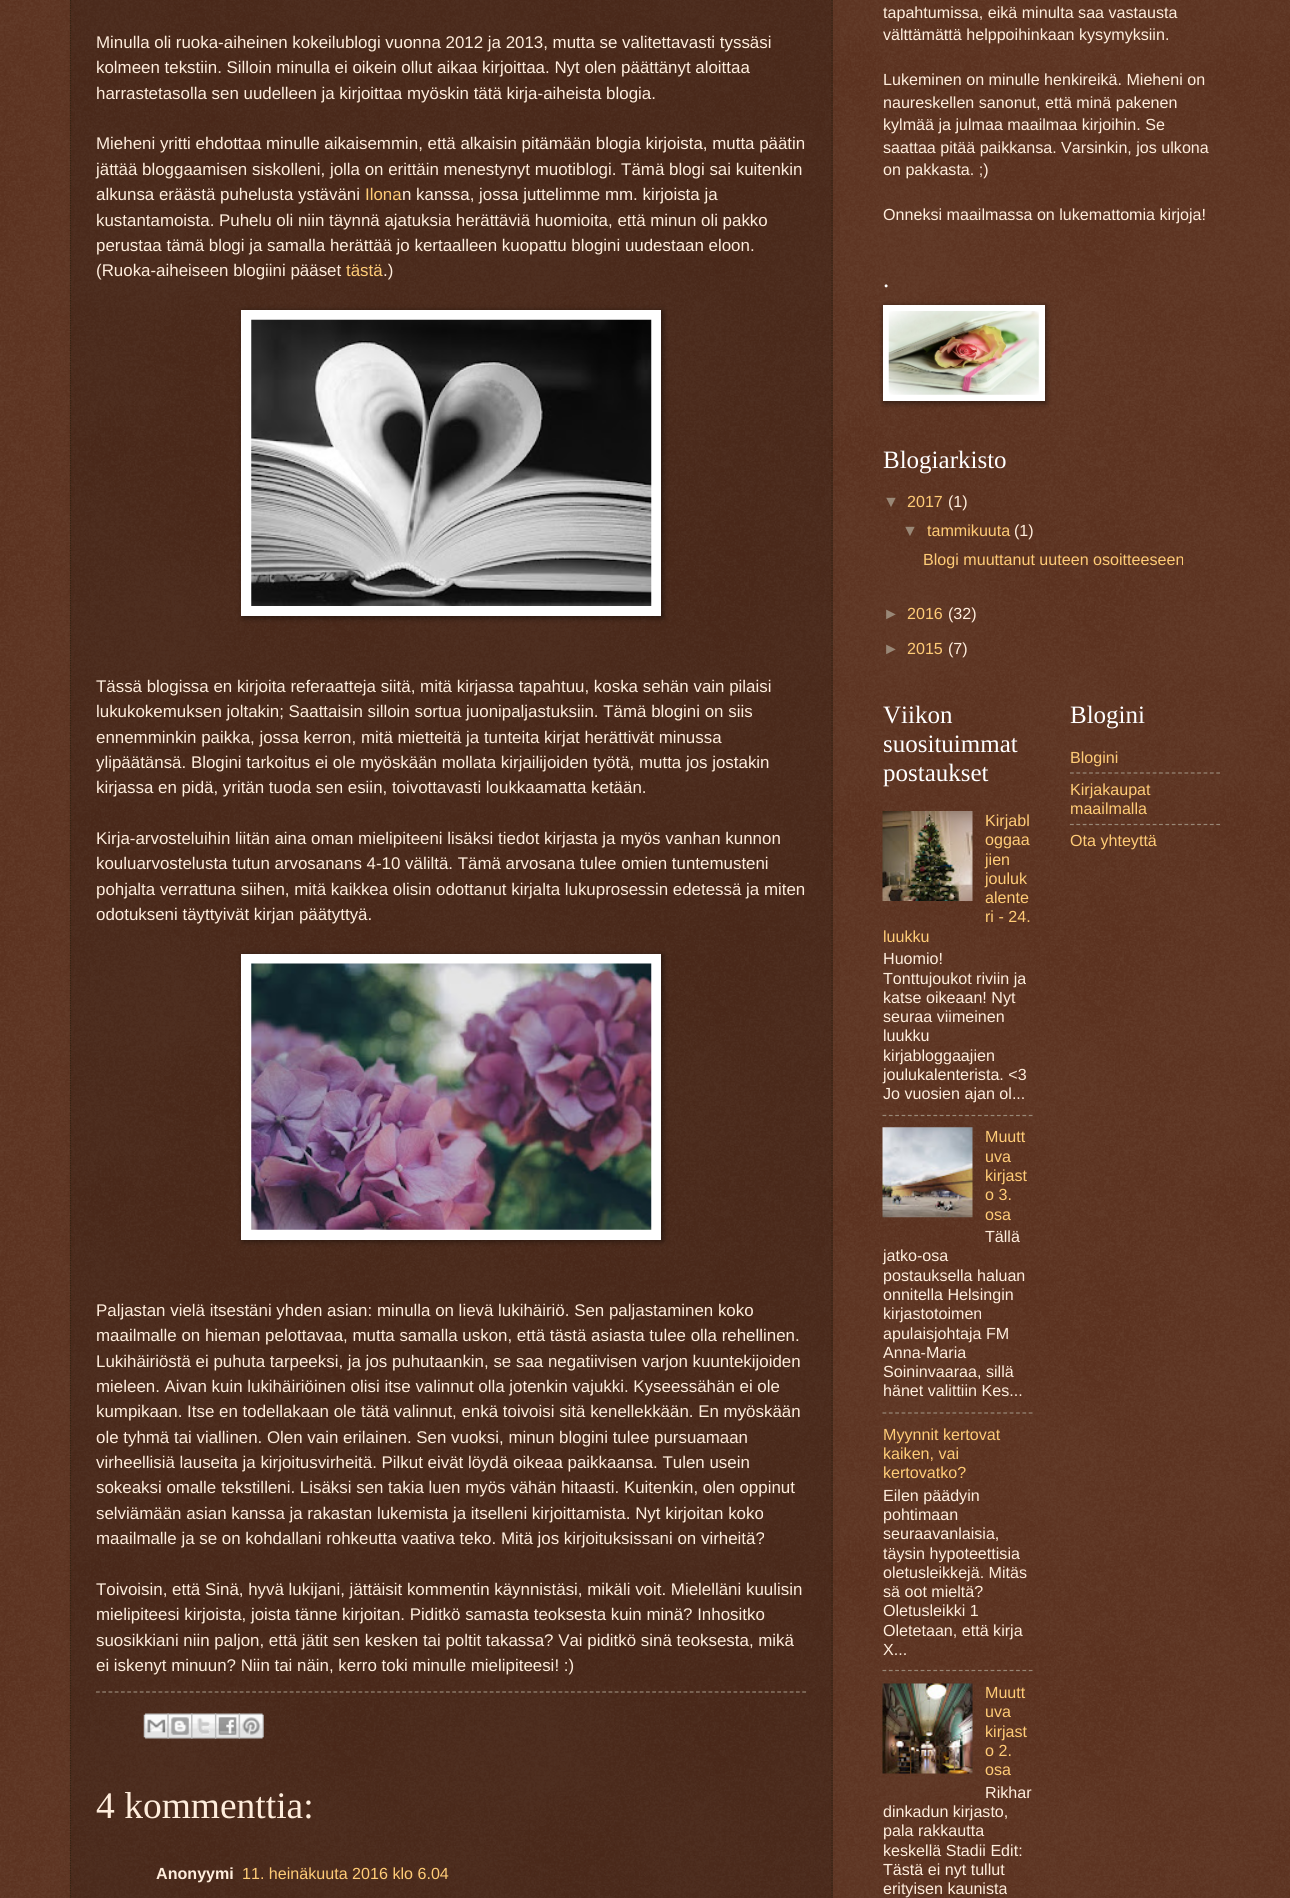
#include <cairo.h>
#include <math.h>
#include <stddef.h>

typedef struct { double x, y; const char *s; } line_t;

static void ink(cairo_t *ctx, unsigned color) {
    cairo_set_source_rgb(ctx, (color >> 16) / 255.0, (color >> 8 & 255) / 255.0, (color & 255) / 255.0);
}

static void round_path(cairo_t *ctx, double x, double y, double w, double h, double r) {
    cairo_new_sub_path(ctx);
    cairo_arc(ctx, x + w - r, y + h - r, r, 0, M_PI / 2);
    cairo_arc(ctx, x + r, y + h - r, r, M_PI / 2, M_PI);
    cairo_arc(ctx, x + r, y + r, r, M_PI, 1.5 * M_PI);
    cairo_arc(ctx, x + w - r, y + r, r, 1.5 * M_PI, 2 * M_PI);
    cairo_close_path(ctx);
}

static void blur_box(cairo_t *ctx, double x, double y, double w, double h, double r, double blur, double alpha) {
    cairo_push_group_with_content(ctx, CAIRO_CONTENT_ALPHA);
    cairo_set_operator(ctx, CAIRO_OPERATOR_SOURCE);
    for (int i = 15; i >= -15 && fmin(w, h) + blur * i / 3 > 0; i -= 2) {
        double e = blur * i / 6;
        cairo_set_source_rgba(ctx, 0, 0, 0, alpha * erfc((i - 1) / 8.5) / 2);
        round_path(ctx, x - e, y - e, w + 2 * e, h + 2 * e, fmax(0, fmin(r + e + blur * .6, fmin(w, h) / 2 + e)));
        cairo_fill(ctx);
    }
    cairo_pattern_t *soft = cairo_pop_group(ctx);
    cairo_mask(ctx, soft);
    cairo_pattern_destroy(soft);
}

static void paste(cairo_t *ctx, const char *path, double x, double y, double w, double h) {
    cairo_surface_t *image = cairo_image_surface_create_from_png(path);
    cairo_save(ctx);
    cairo_set_source_surface(ctx, image, x, y);
    cairo_rectangle(ctx, x, y, w, h);
    cairo_fill(ctx);
    cairo_restore(ctx);
    cairo_surface_destroy(image);
}

int main(void) {
    cairo_surface_t *surface = cairo_image_surface_create(CAIRO_FORMAT_RGB24, 1290, 1898);
    cairo_t *ctx = cairo_create(surface);
    cairo_font_options_t *options = cairo_font_options_create();
    cairo_font_options_set_hint_metrics(options, CAIRO_HINT_METRICS_OFF);
    cairo_font_options_set_hint_style(options, CAIRO_HINT_STYLE_NONE);
    cairo_set_font_options(ctx, options);
    cairo_set_miter_limit(ctx, 4);
    ink(ctx, 0x441500);
    cairo_paint(ctx);
    paste(ctx, "media/1.png", 0, 0, 1290, 1898);
    cairo_set_source_rgba(ctx, 0, 0, 0, 0.2);
    cairo_rectangle(ctx, 70, 0, 763, 1898);
    cairo_fill(ctx);
    cairo_new_path(ctx);
    cairo_move_to(ctx, 832, -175);
    cairo_line_to(ctx, 832, 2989);
    ink(ctx, 0x332211);
    cairo_set_line_width(ctx, 1.2);
    cairo_set_dash(ctx, (double[]){1.25, 1.25}, 2, 0);
    cairo_stroke(ctx);
    cairo_new_path(ctx);
    cairo_move_to(ctx, 70.5, -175);
    cairo_line_to(ctx, 70.5, 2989);
    cairo_stroke(ctx);
    cairo_select_font_face(ctx, "Liberation Sans", CAIRO_FONT_SLANT_NORMAL, CAIRO_FONT_WEIGHT_NORMAL);
    cairo_set_font_size(ctx, 16.9);
    ink(ctx, 0xFFEEDD);
    {
        static const line_t items[] = {
            {96, 48, "Minulla oli ruoka-aiheinen kokeilublogi vuonna 2012 ja 2013, mutta se valitettavasti tyssäsi"},
            {96, 73, "kolmeen tekstiin. Silloin minulla ei oikein ollut aikaa kirjoittaa. Nyt olen päättänyt aloittaa"},
            {96, 99, "harrastetasolla sen uudelleen ja kirjoittaa myöskin tätä kirja-aiheista blogia."},
            {96, 149, "Mieheni yritti ehdottaa minulle aikaisemmin, että alkaisin pitämään blogia kirjoista, mutta päätin"},
            {96, 175, "jättää bloggaamisen siskolleni, jolla on erittäin menestynyt muotiblogi. Tämä blogi sai kuitenkin"},
            {96, 200, "alkunsa eräästä puhelusta ystäväni"},
        };
        for (size_t i = 0; i < sizeof items / sizeof *items; i++) {
            cairo_move_to(ctx, items[i].x, items[i].y);
            cairo_show_text(ctx, items[i].s);
        }
    }
    ink(ctx, 0xFFCC77);
    cairo_move_to(ctx, 365, 200);
    cairo_show_text(ctx, "Ilona");
    ink(ctx, 0xFFEEDD);
    {
        static const line_t items[] = {
            {402, 200, "n kanssa, jossa juttelimme mm. kirjoista ja"},
            {96, 226, "kustantamoista. Puhelu oli niin täynnä ajatuksia herättäviä huomioita, että minun oli pakko"},
            {96, 251, "perustaa tämä blogi ja samalla herättää jo kertaalleen kuopattu blogini uudestaan eloon."},
            {96, 276, "(Ruoka-aiheiseen blogiini pääset"},
        };
        for (size_t i = 0; i < sizeof items / sizeof *items; i++) {
            cairo_move_to(ctx, items[i].x, items[i].y);
            cairo_show_text(ctx, items[i].s);
        }
    }
    ink(ctx, 0xFFCC77);
    cairo_move_to(ctx, 346, 276);
    cairo_show_text(ctx, "tästä");
    ink(ctx, 0xFFEEDD);
    cairo_move_to(ctx, 383, 276);
    cairo_show_text(ctx, ".)");
    ink(ctx, 0x000000);
    blur_box(ctx, 243, 311, 420, 307, 0, 3, 0.5);
    ink(ctx, 0xFFFFFF);
    cairo_rectangle(ctx, 241, 310, 420, 306);
    cairo_fill(ctx);
    paste(ctx, "media/2.png", 251, 319, 401, 287);
    ink(ctx, 0xFFEEDD);
    {
        static const line_t items[] = {
            {96, 692, "Tässä blogissa en kirjoita referaatteja siitä, mitä kirjassa tapahtuu, koska sehän vain pilaisi"},
            {96, 717, "lukukokemuksen joltakin; Saattaisin silloin sortua juonipaljastuksiin. Tämä blogini on siis"},
            {96, 743, "ennemminkin paikka, jossa kerron, mitä mietteitä ja tunteita kirjat herättivät minussa"},
            {96, 768, "ylipäätänsä. Blogini tarkoitus ei ole myöskään mollata kirjailijoiden työtä, mutta jos jostakin"},
            {96, 793, "kirjassa en pidä, yritän tuoda sen esiin, toivottavasti loukkaamatta ketään."},
            {96, 844, "Kirja-arvosteluihin liitän aina oman mielipiteeni lisäksi tiedot kirjasta ja myös vanhan kunnon"},
            {96, 869, "kouluarvostelusta tutun arvosanans 4-10 väliltä. Tämä arvosana tulee omien tuntemusteni"},
            {96, 895, "pohjalta verrattuna siihen, mitä kaikkea olisin odottanut kirjalta lukuprosessin edetessä ja miten"},
            {96, 920, "odotukseni täyttyivät kirjan päätyttyä."},
        };
        for (size_t i = 0; i < sizeof items / sizeof *items; i++) {
            cairo_move_to(ctx, items[i].x, items[i].y);
            cairo_show_text(ctx, items[i].s);
        }
    }
    ink(ctx, 0x000000);
    blur_box(ctx, 243, 955, 420, 286, 0, 3, 0.5);
    ink(ctx, 0xFFFFFF);
    cairo_rectangle(ctx, 241, 954, 420, 286);
    cairo_fill(ctx);
    paste(ctx, "media/3.png", 251, 963, 401, 267);
    ink(ctx, 0xFFEEDD);
    {
        static const line_t items[] = {
            {96, 1316, "Paljastan vielä itsestäni yhden asian: minulla on lievä lukihäiriö. Sen paljastaminen koko"},
            {96, 1341, "maailmalle on hieman pelottavaa, mutta samalla uskon, että tästä asiasta tulee olla rehellinen."},
            {96, 1367, "Lukihäiriöstä ei puhuta tarpeeksi, ja jos puhutaankin, se saa negatiivisen varjon kuuntekijoiden"},
            {96, 1392, "mieleen. Aivan kuin lukihäiriöinen olisi itse valinnut olla jotenkin vajukki. Kyseessähän ei ole"},
            {96, 1417, "kumpikaan. Itse en todellakaan ole tätä valinnut, enkä toivoisi sitä kenellekkään. En myöskään"},
            {96, 1443, "ole tyhmä tai viallinen. Olen vain erilainen. Sen vuoksi, minun blogini tulee pursuamaan"},
            {96, 1468, "virheellisiä lauseita ja kirjoitusvirheitä. Pilkut eivät löydä oikeaa paikkaansa. Tulen usein"},
            {96, 1493, "sokeaksi omalle tekstilleni. Lisäksi sen takia luen myös vähän hitaasti. Kuitenkin, olen oppinut"},
            {96, 1519, "selviämään asian kanssa ja rakastan lukemista ja itselleni kirjoittamista. Nyt kirjoitan koko"},
            {96, 1544, "maailmalle ja se on kohdallani rohkeutta vaativa teko. Mitä jos kirjoituksissani on virheitä?"},
            {96, 1595, "Toivoisin, että Sinä, hyvä lukijani, jättäisit kommentin käynnistäsi, mikäli voit. Mielelläni kuulisin"},
            {96, 1620, "mielipiteesi kirjoista, joista tänne kirjoitan. Piditkö samasta teoksesta kuin minä? Inhositko"},
            {96, 1646, "suosikkiani niin paljon, että jätit sen kesken tai poltit takassa? Vai piditkö sinä teoksesta, mikä"},
            {96, 1671, "ei iskenyt minuun? Niin tai näin, kerro toki minulle mielipiteesi! :)"},
        };
        for (size_t i = 0; i < sizeof items / sizeof *items; i++) {
            cairo_move_to(ctx, items[i].x, items[i].y);
            cairo_show_text(ctx, items[i].s);
        }
    }
    cairo_new_path(ctx);
    cairo_move_to(ctx, 96, 1692);
    cairo_line_to(ctx, 806, 1692);
    ink(ctx, 0x998877);
    cairo_set_dash(ctx, (double[]){3.75, 2.5}, 2, 0);
    cairo_stroke(ctx);
    paste(ctx, "media/4.png", 143, 1713, 26, 26);
    paste(ctx, "media/5.png", 167, 1713, 26, 26);
    paste(ctx, "media/6.png", 191, 1713, 26, 26);
    paste(ctx, "media/7.png", 215, 1713, 25, 26);
    paste(ctx, "media/8.png", 238, 1713, 26, 26);
    cairo_select_font_face(ctx, "Liberation Serif", CAIRO_FONT_SLANT_NORMAL, CAIRO_FONT_WEIGHT_NORMAL);
    cairo_set_font_size(ctx, 37.5);
    ink(ctx, 0xFFEEDD);
    cairo_move_to(ctx, 96, 1818);
    cairo_show_text(ctx, "4 kommenttia:");
    cairo_select_font_face(ctx, "Liberation Sans", CAIRO_FONT_SLANT_NORMAL, CAIRO_FONT_WEIGHT_BOLD);
    cairo_set_font_size(ctx, 16.1);
    cairo_move_to(ctx, 156, 1879);
    cairo_show_text(ctx, "Anonyymi");
    cairo_select_font_face(ctx, "Liberation Sans", CAIRO_FONT_SLANT_NORMAL, CAIRO_FONT_WEIGHT_NORMAL);
    ink(ctx, 0xFFCC77);
    cairo_move_to(ctx, 242, 1879);
    cairo_show_text(ctx, "11. heinäkuuta 2016 klo 6.04");
    ink(ctx, 0xFFEEDD);
    {
        static const line_t items[] = {
            {883, 18, "tapahtumissa, eikä minulta saa vastausta"},
            {883, 40, "välttämättä helppoihinkaan kysymyksiin."},
            {883, 85, "Lukeminen on minulle henkireikä. Mieheni on"},
            {883, 108, "naureskellen sanonut, että minä pakenen"},
            {883, 130, "kylmää ja julmaa maailmaa kirjoihin. Se"},
            {883, 153, "saattaa pitää paikkansa. Varsinkin, jos ulkona"},
            {883, 175, "on pakkasta. ;)"},
            {883, 220, "Onneksi maailmassa on lukemattomia kirjoja!"},
        };
        for (size_t i = 0; i < sizeof items / sizeof *items; i++) {
            cairo_move_to(ctx, items[i].x, items[i].y);
            cairo_show_text(ctx, items[i].s);
        }
    }
    cairo_select_font_face(ctx, "Liberation Serif", CAIRO_FONT_SLANT_NORMAL, CAIRO_FONT_WEIGHT_NORMAL);
    cairo_set_font_size(ctx, 25);
    ink(ctx, 0xFFFFFF);
    cairo_move_to(ctx, 883, 287);
    cairo_show_text(ctx, ".");
    ink(ctx, 0x000000);
    blur_box(ctx, 884, 306, 162, 97, 0, 3, 0.5);
    ink(ctx, 0xFFFFFF);
    cairo_rectangle(ctx, 883, 305, 162, 96);
    cairo_fill(ctx);
    paste(ctx, "media/9.png", 888, 311, 151, 84);
    cairo_move_to(ctx, 883, 468);
    cairo_show_text(ctx, "Blogiarkisto");
    cairo_select_font_face(ctx, "Liberation Sans", CAIRO_FONT_SLANT_NORMAL, CAIRO_FONT_WEIGHT_NORMAL);
    cairo_set_font_size(ctx, 16.1);
    ink(ctx, 0x998877);
    cairo_move_to(ctx, 883, 507);
    cairo_show_text(ctx, "▼");
    ink(ctx, 0xFFCC77);
    cairo_move_to(ctx, 907, 507);
    cairo_show_text(ctx, "2017");
    ink(ctx, 0xFFEEDD);
    cairo_move_to(ctx, 948, 507);
    cairo_show_text(ctx, "(1)");
    ink(ctx, 0x998877);
    cairo_move_to(ctx, 902, 536);
    cairo_show_text(ctx, "▼");
    ink(ctx, 0xFFCC77);
    cairo_move_to(ctx, 927, 536);
    cairo_show_text(ctx, "tammikuuta");
    ink(ctx, 0xFFEEDD);
    cairo_move_to(ctx, 1014, 536);
    cairo_show_text(ctx, "(1)");
    ink(ctx, 0xFFCC77);
    cairo_move_to(ctx, 923, 565);
    cairo_show_text(ctx, "Blogi muuttanut uuteen osoitteeseen");
    ink(ctx, 0x998877);
    cairo_move_to(ctx, 883, 619);
    cairo_show_text(ctx, "►");
    ink(ctx, 0xFFCC77);
    cairo_move_to(ctx, 907, 619);
    cairo_show_text(ctx, "2016");
    ink(ctx, 0xFFEEDD);
    cairo_move_to(ctx, 948, 619);
    cairo_show_text(ctx, "(32)");
    ink(ctx, 0x998877);
    cairo_move_to(ctx, 883, 654);
    cairo_show_text(ctx, "►");
    ink(ctx, 0xFFCC77);
    cairo_move_to(ctx, 907, 654);
    cairo_show_text(ctx, "2015");
    ink(ctx, 0xFFEEDD);
    cairo_move_to(ctx, 948, 654);
    cairo_show_text(ctx, "(7)");
    cairo_select_font_face(ctx, "Liberation Serif", CAIRO_FONT_SLANT_NORMAL, CAIRO_FONT_WEIGHT_NORMAL);
    cairo_set_font_size(ctx, 25);
    ink(ctx, 0xFFFFFF);
    {
        static const line_t items[] = {
            {883, 723, "Viikon"},
            {883, 752, "suosituimmat"},
            {883, 781, "postaukset"},
        };
        for (size_t i = 0; i < sizeof items / sizeof *items; i++) {
            cairo_move_to(ctx, items[i].x, items[i].y);
            cairo_show_text(ctx, items[i].s);
        }
    }
    paste(ctx, "media/10.png", 882, 811, 91, 90);
    cairo_select_font_face(ctx, "Liberation Sans", CAIRO_FONT_SLANT_NORMAL, CAIRO_FONT_WEIGHT_NORMAL);
    cairo_set_font_size(ctx, 16.1);
    ink(ctx, 0xFFCC77);
    {
        static const line_t items[] = {
            {985, 826, "Kirjabl"},
            {985, 845, "oggaa"},
            {985, 865, "jien"},
            {985, 884, "jouluk"},
            {985, 903, "alente"},
            {985, 922, "ri - 24."},
            {883, 942, "luukku"},
        };
        for (size_t i = 0; i < sizeof items / sizeof *items; i++) {
            cairo_move_to(ctx, items[i].x, items[i].y);
            cairo_show_text(ctx, items[i].s);
        }
    }
    ink(ctx, 0xFFEEDD);
    {
        static const line_t items[] = {
            {883, 964, "Huomio!"},
            {883, 984, "Tonttujoukot riviin ja"},
            {883, 1003, "katse oikeaan! Nyt"},
            {883, 1022, "seuraa viimeinen"},
            {883, 1041, "luukku"},
            {883, 1061, "kirjabloggaajien"},
            {883, 1080, "joulukalenterista. <3"},
            {883, 1099, "Jo vuosien ajan ol..."},
        };
        for (size_t i = 0; i < sizeof items / sizeof *items; i++) {
            cairo_move_to(ctx, items[i].x, items[i].y);
            cairo_show_text(ctx, items[i].s);
        }
    }
    cairo_new_path(ctx);
    cairo_move_to(ctx, 882.5, 1115.5);
    cairo_line_to(ctx, 1032.5, 1115.5);
    ink(ctx, 0x998877);
    cairo_set_dash(ctx, (double[]){3.75, 2.61}, 2, 0);
    cairo_stroke(ctx);
    paste(ctx, "media/11.png", 882, 1127, 91, 91);
    ink(ctx, 0xFFCC77);
    {
        static const line_t items[] = {
            {985, 1142, "Muutt"},
            {985, 1162, "uva"},
            {985, 1181, "kirjast"},
            {985, 1200, "o 3."},
            {985, 1220, "osa"},
        };
        for (size_t i = 0; i < sizeof items / sizeof *items; i++) {
            cairo_move_to(ctx, items[i].x, items[i].y);
            cairo_show_text(ctx, items[i].s);
        }
    }
    ink(ctx, 0xFFEEDD);
    {
        static const line_t items[] = {
            {985, 1242, "Tällä"},
            {883, 1261, "jatko-osa"},
            {883, 1281, "postauksella haluan"},
            {883, 1300, "onnitella Helsingin"},
            {883, 1319, "kirjastotoimen"},
            {883, 1339, "apulaisjohtaja FM"},
            {883, 1358, "Anna-Maria"},
            {883, 1377, "Soininvaaraa, sillä"},
            {883, 1396, "hänet valittiin Kes..."},
        };
        for (size_t i = 0; i < sizeof items / sizeof *items; i++) {
            cairo_move_to(ctx, items[i].x, items[i].y);
            cairo_show_text(ctx, items[i].s);
        }
    }
    cairo_new_path(ctx);
    cairo_move_to(ctx, 882.5, 1413);
    cairo_line_to(ctx, 1032.5, 1413);
    ink(ctx, 0x998877);
    cairo_stroke(ctx);
    ink(ctx, 0xFFCC77);
    {
        static const line_t items[] = {
            {883, 1440, "Myynnit kertovat"},
            {883, 1459, "kaiken, vai"},
            {883, 1478, "kertovatko?"},
        };
        for (size_t i = 0; i < sizeof items / sizeof *items; i++) {
            cairo_move_to(ctx, items[i].x, items[i].y);
            cairo_show_text(ctx, items[i].s);
        }
    }
    ink(ctx, 0xFFEEDD);
    {
        static const line_t items[] = {
            {883, 1501, "Eilen päädyin"},
            {883, 1520, "pohtimaan"},
            {883, 1539, "seuraavanlaisia,"},
            {883, 1559, "täysin hypoteettisia"},
            {883, 1578, "oletusleikkejä. Mitäs"},
            {883, 1597, "sä oot mieltä?"},
            {883, 1616, "Oletusleikki 1"},
            {883, 1636, "Oletetaan, että kirja"},
            {883, 1655, "X..."},
        };
        for (size_t i = 0; i < sizeof items / sizeof *items; i++) {
            cairo_move_to(ctx, items[i].x, items[i].y);
            cairo_show_text(ctx, items[i].s);
        }
    }
    cairo_new_path(ctx);
    cairo_move_to(ctx, 882.5, 1670.5);
    cairo_line_to(ctx, 1032.5, 1670.5);
    ink(ctx, 0x998877);
    cairo_stroke(ctx);
    paste(ctx, "media/12.png", 882, 1683, 91, 91);
    ink(ctx, 0xFFCC77);
    {
        static const line_t items[] = {
            {985, 1698, "Muutt"},
            {985, 1717, "uva"},
            {985, 1737, "kirjast"},
            {985, 1756, "o 2."},
            {985, 1775, "osa"},
        };
        for (size_t i = 0; i < sizeof items / sizeof *items; i++) {
            cairo_move_to(ctx, items[i].x, items[i].y);
            cairo_show_text(ctx, items[i].s);
        }
    }
    ink(ctx, 0xFFEEDD);
    {
        static const line_t items[] = {
            {985, 1798, "Rikhar"},
            {883, 1817, "dinkadun kirjasto,"},
            {883, 1836, "pala rakkautta"},
            {883, 1856, "keskellä Stadii Edit:"},
            {883, 1875, "Tästä ei nyt tullut"},
            {883, 1894, "erityisen kaunista"},
        };
        for (size_t i = 0; i < sizeof items / sizeof *items; i++) {
            cairo_move_to(ctx, items[i].x, items[i].y);
            cairo_show_text(ctx, items[i].s);
        }
    }
    cairo_select_font_face(ctx, "Liberation Serif", CAIRO_FONT_SLANT_NORMAL, CAIRO_FONT_WEIGHT_NORMAL);
    cairo_set_font_size(ctx, 25);
    ink(ctx, 0xFFFFFF);
    cairo_move_to(ctx, 1070, 723);
    cairo_show_text(ctx, "Blogini");
    cairo_select_font_face(ctx, "Liberation Sans", CAIRO_FONT_SLANT_NORMAL, CAIRO_FONT_WEIGHT_NORMAL);
    cairo_set_font_size(ctx, 16.1);
    ink(ctx, 0xFFCC77);
    cairo_move_to(ctx, 1070, 763);
    cairo_show_text(ctx, "Blogini");
    cairo_new_path(ctx);
    cairo_move_to(ctx, 1070, 773);
    cairo_line_to(ctx, 1220, 773);
    ink(ctx, 0x998877);
    cairo_stroke(ctx);
    ink(ctx, 0xFFCC77);
    cairo_move_to(ctx, 1070, 795);
    cairo_show_text(ctx, "Kirjakaupat");
    cairo_move_to(ctx, 1070, 814);
    cairo_show_text(ctx, "maailmalla");
    cairo_new_path(ctx);
    cairo_move_to(ctx, 1070, 824.5);
    cairo_line_to(ctx, 1220, 824.5);
    ink(ctx, 0x998877);
    cairo_stroke(ctx);
    ink(ctx, 0xFFCC77);
    cairo_move_to(ctx, 1070, 846);
    cairo_show_text(ctx, "Ota yhteyttä");
    cairo_surface_write_to_png(surface, "image.png");
    cairo_font_options_destroy(options);
    cairo_destroy(ctx);
    cairo_surface_destroy(surface);
    return 0;
}
